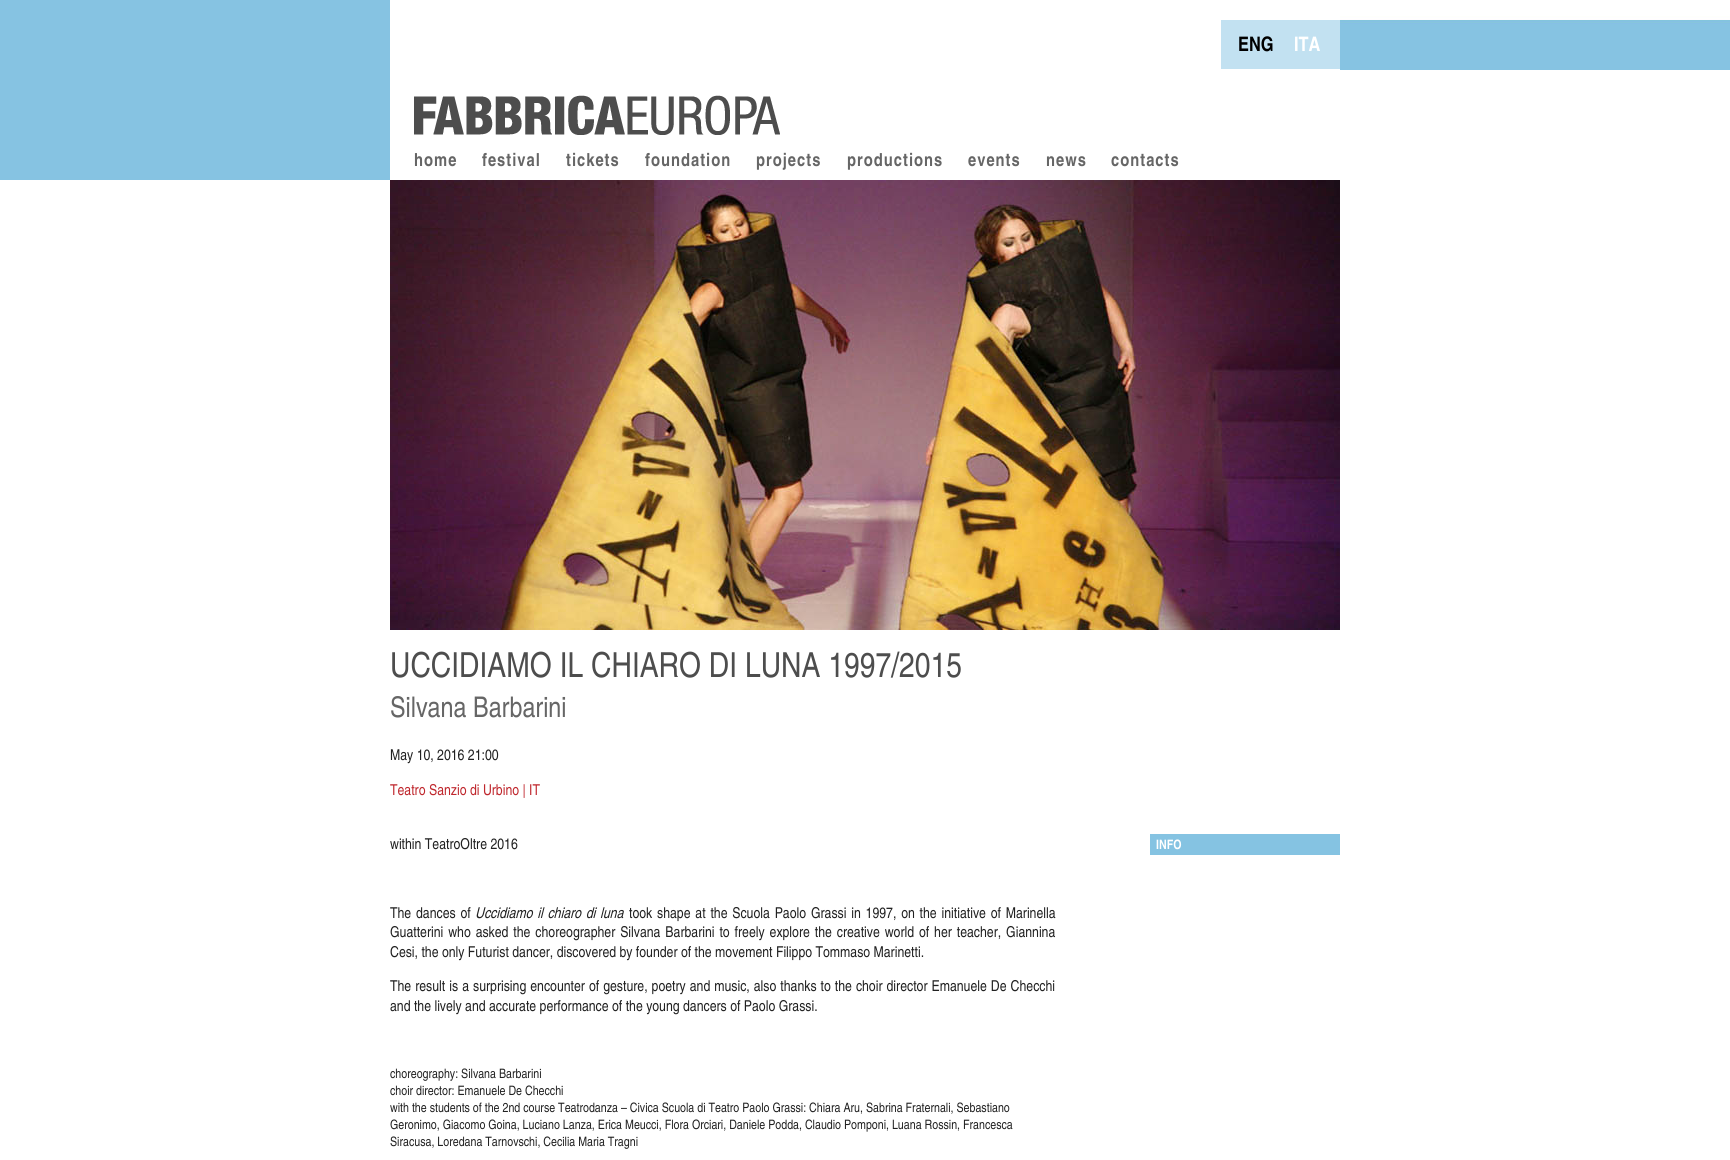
#include <cairo.h>
#include <math.h>
#include <stddef.h>

typedef struct { double x, y; const char *s; } line_t;

static void ink(cairo_t *ctx, unsigned color) {
    cairo_set_source_rgb(ctx, (color >> 16) / 255.0, (color >> 8 & 255) / 255.0, (color & 255) / 255.0);
}

static void write_spaced(cairo_t *ctx, double x, double y, const char *s, double letter, double word) {
    cairo_move_to(ctx, x, y);
    while (*s) {
        char ch[5] = {0};
        int n = 0;
        do ch[n++] = *s++; while ((*s & 0xC0) == 0x80);
        cairo_show_text(ctx, ch);
        cairo_rel_move_to(ctx, letter + word * (*ch == ' '), 0);
    }
}

static void paste(cairo_t *ctx, const char *path, double x, double y, double w, double h) {
    cairo_surface_t *image = cairo_image_surface_create_from_png(path);
    cairo_save(ctx);
    cairo_set_source_surface(ctx, image, x, y);
    cairo_rectangle(ctx, x, y, w, h);
    cairo_fill(ctx);
    cairo_restore(ctx);
    cairo_surface_destroy(image);
}

int main(void) {
    cairo_surface_t *surface = cairo_image_surface_create(CAIRO_FORMAT_RGB24, 1730, 1160);
    cairo_t *ctx = cairo_create(surface);
    cairo_font_options_t *options = cairo_font_options_create();
    cairo_font_options_set_hint_metrics(options, CAIRO_HINT_METRICS_OFF);
    cairo_font_options_set_hint_style(options, CAIRO_HINT_STYLE_NONE);
    cairo_set_font_options(ctx, options);
    cairo_set_miter_limit(ctx, 4);
    ink(ctx, 0xFFFFFF);
    cairo_paint(ctx);
    paste(ctx, "media/1.png", 0, 0, 1730, 180);
    ink(ctx, 0xFFFFFF);
    cairo_rectangle(ctx, 390, 0, 950, 180);
    cairo_fill(ctx);
    ink(ctx, 0xC2E1F1);
    cairo_rectangle(ctx, 1221, 20, 119, 49);
    cairo_fill(ctx);
    cairo_select_font_face(ctx, "TeX Gyre Heros Cn", CAIRO_FONT_SLANT_NORMAL, CAIRO_FONT_WEIGHT_BOLD);
    cairo_set_font_size(ctx, 20);
    ink(ctx, 0x000000);
    cairo_move_to(ctx, 1238, 51);
    cairo_show_text(ctx, "ENG");
    ink(ctx, 0xFFFFFF);
    cairo_move_to(ctx, 1294, 51);
    cairo_show_text(ctx, "ITA");
    paste(ctx, "media/2.png", 414, 95, 366, 40);
    cairo_set_font_size(ctx, 18);
    ink(ctx, 0x666666);
    {
        static const line_t items[] = {
            {414, 166, "home"},
            {482, 166, "festival"},
            {566, 166, "tickets"},
            {645, 166, "foundation"},
            {756, 166, "projects"},
            {847, 166, "productions"},
            {968, 166, "events"},
            {1046, 166, "news"},
            {1111, 166, "contacts"},
        };
        for (size_t i = 0; i < sizeof items / sizeof *items; i++) {
            write_spaced(ctx, items[i].x, items[i].y, items[i].s, 1, 0);
        }
    }
    paste(ctx, "media/3.png", 390, 180, 950, 450);
    cairo_select_font_face(ctx, "TeX Gyre Heros Cn", CAIRO_FONT_SLANT_NORMAL, CAIRO_FONT_WEIGHT_NORMAL);
    cairo_set_font_size(ctx, 34.5);
    ink(ctx, 0x4D4D4D);
    cairo_move_to(ctx, 390, 677);
    cairo_show_text(ctx, "UCCIDIAMO IL CHIARO DI LUNA 1997/2015");
    cairo_set_font_size(ctx, 28.5);
    ink(ctx, 0x666666);
    cairo_move_to(ctx, 390, 717);
    cairo_show_text(ctx, "Silvana Barbarini");
    cairo_set_font_size(ctx, 15);
    ink(ctx, 0x212121);
    cairo_move_to(ctx, 390, 760);
    cairo_show_text(ctx, "May 10, 2016 21:00");
    ink(ctx, 0xBF272D);
    cairo_move_to(ctx, 390, 795);
    cairo_show_text(ctx, "Teatro Sanzio di Urbino | IT");
    ink(ctx, 0x212121);
    cairo_move_to(ctx, 390, 849);
    cairo_show_text(ctx, "within TeatroOltre 2016");
    write_spaced(ctx, 390, 918, "The dances of", 0, 1.4);
    cairo_select_font_face(ctx, "TeX Gyre Heros Cn", CAIRO_FONT_SLANT_ITALIC, CAIRO_FONT_WEIGHT_NORMAL);
    write_spaced(ctx, 475, 918, "Uccidiamo il chiaro di luna", 0, 1.4);
    cairo_select_font_face(ctx, "TeX Gyre Heros Cn", CAIRO_FONT_SLANT_NORMAL, CAIRO_FONT_WEIGHT_NORMAL);
    write_spaced(ctx, 629, 918, "took shape at the Scuola Paolo Grassi in 1997, on the initiative of Marinella", 0, 1.4);
    write_spaced(ctx, 390, 937, "Guatterini who asked the choreographer Silvana Barbarini to freely explore the creative world of her teacher, Giannina", 0, 1.5);
    cairo_move_to(ctx, 390, 957);
    cairo_show_text(ctx, "Cesi, the only Futurist dancer, discovered by founder of the movement Filippo Tommaso Marinetti.");
    write_spaced(ctx, 390, 991, "The result is a surprising encounter of gesture, poetry and music, also thanks to the choir director Emanuele De Checchi", 0, 0.6);
    cairo_move_to(ctx, 390, 1011);
    cairo_show_text(ctx, "and the lively and accurate performance of the young dancers of Paolo Grassi.");
    cairo_set_font_size(ctx, 13);
    {
        static const line_t items[] = {
            {390, 1078, "choreography: Silvana Barbarini"},
            {390, 1095, "choir director: Emanuele De Checchi"},
            {390, 1112, "with the students of the 2nd course Teatrodanza – Civica Scuola di Teatro Paolo Grassi: Chiara Aru, Sabrina Fraternali, Sebastiano"},
            {390, 1129, "Geronimo, Giacomo Goina, Luciano Lanza, Erica Meucci, Flora Orciari, Daniele Podda, Claudio Pomponi, Luana Rossin, Francesca"},
            {390, 1146, "Siracusa, Loredana Tarnovschi, Cecilia Maria Tragni"},
        };
        for (size_t i = 0; i < sizeof items / sizeof *items; i++) {
            cairo_move_to(ctx, items[i].x, items[i].y);
            cairo_show_text(ctx, items[i].s);
        }
    }
    ink(ctx, 0x85C3E2);
    cairo_rectangle(ctx, 1150, 834, 190, 21);
    cairo_fill(ctx);
    cairo_select_font_face(ctx, "TeX Gyre Heros Cn", CAIRO_FONT_SLANT_NORMAL, CAIRO_FONT_WEIGHT_BOLD);
    ink(ctx, 0xFFFFFF);
    cairo_move_to(ctx, 1156, 849);
    cairo_show_text(ctx, "INFO");
    cairo_surface_write_to_png(surface, "image.png");
    cairo_font_options_destroy(options);
    cairo_destroy(ctx);
    cairo_surface_destroy(surface);
    return 0;
}
